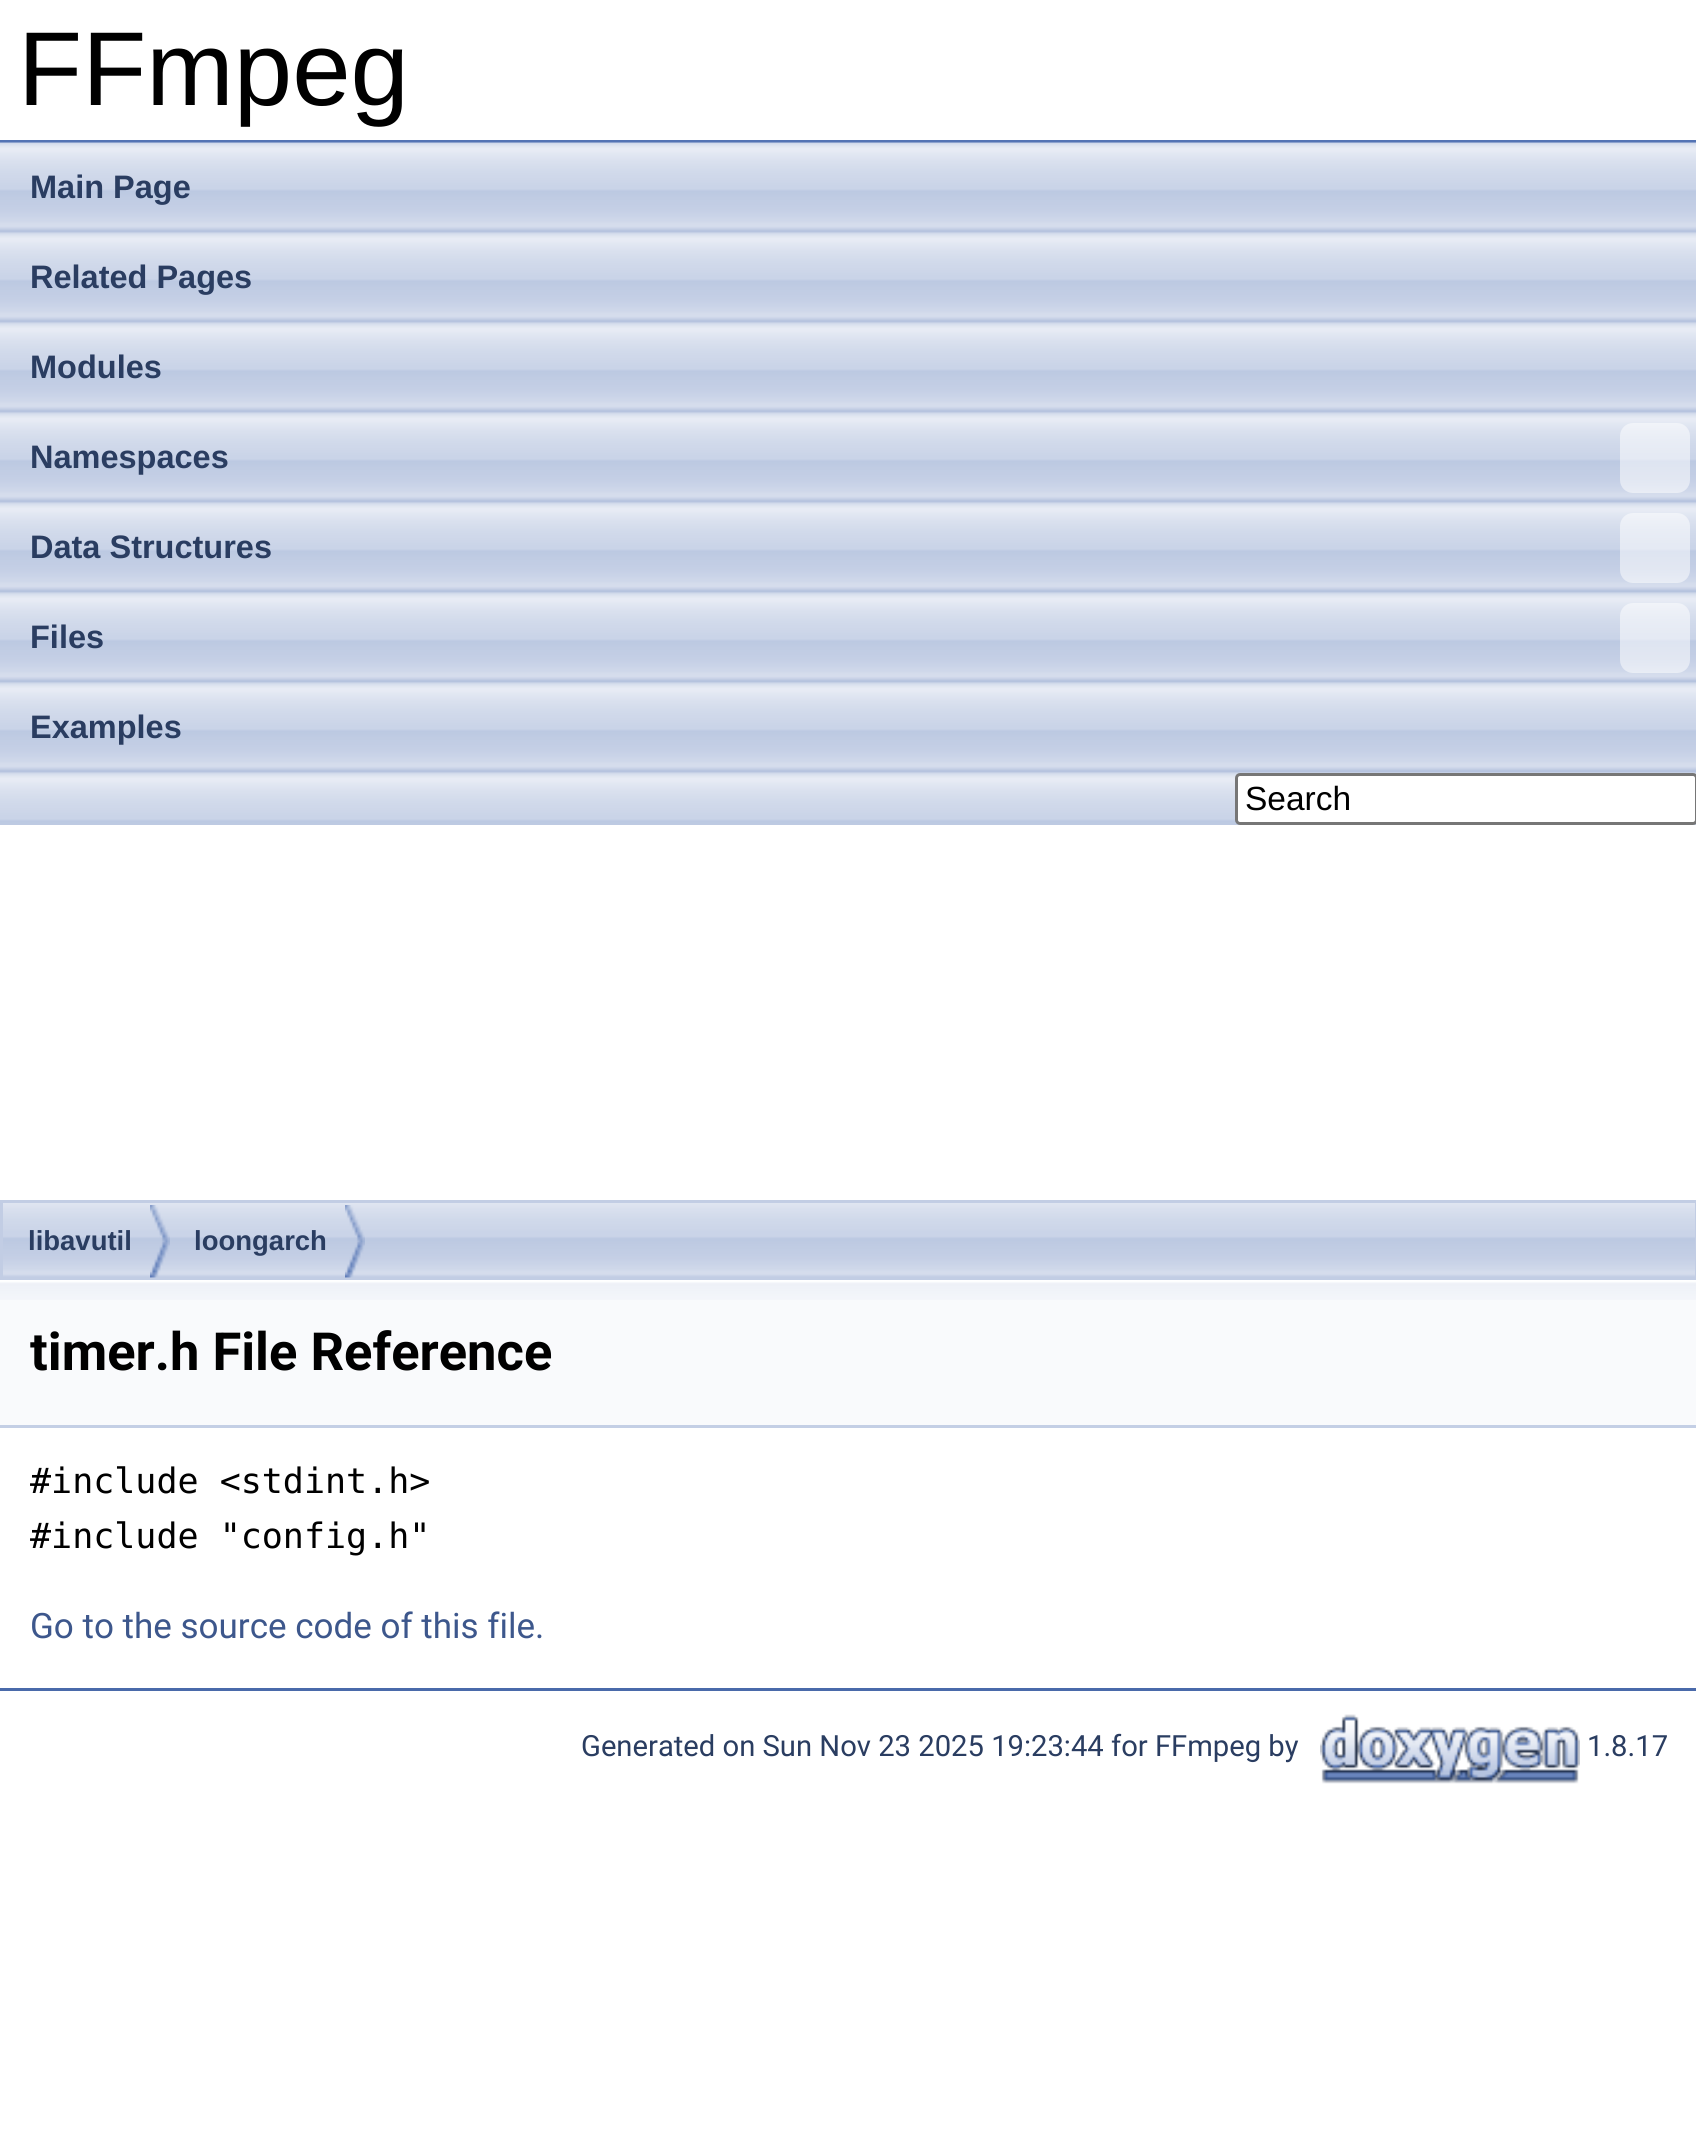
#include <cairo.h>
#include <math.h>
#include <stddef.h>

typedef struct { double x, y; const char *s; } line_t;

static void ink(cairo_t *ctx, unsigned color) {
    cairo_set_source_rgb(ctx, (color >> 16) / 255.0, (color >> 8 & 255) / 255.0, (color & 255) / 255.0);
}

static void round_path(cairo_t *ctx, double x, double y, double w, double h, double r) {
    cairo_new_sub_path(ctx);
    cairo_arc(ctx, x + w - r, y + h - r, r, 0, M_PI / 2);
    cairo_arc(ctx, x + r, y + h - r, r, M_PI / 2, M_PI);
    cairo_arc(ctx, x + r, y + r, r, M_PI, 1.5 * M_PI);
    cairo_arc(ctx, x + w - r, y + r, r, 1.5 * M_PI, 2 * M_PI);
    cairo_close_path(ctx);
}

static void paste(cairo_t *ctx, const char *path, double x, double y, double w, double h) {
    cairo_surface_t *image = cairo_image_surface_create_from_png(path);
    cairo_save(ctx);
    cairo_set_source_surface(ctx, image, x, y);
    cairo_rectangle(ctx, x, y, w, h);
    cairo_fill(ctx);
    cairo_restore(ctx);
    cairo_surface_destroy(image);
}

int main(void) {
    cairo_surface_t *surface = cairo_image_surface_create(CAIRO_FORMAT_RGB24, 1696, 2153);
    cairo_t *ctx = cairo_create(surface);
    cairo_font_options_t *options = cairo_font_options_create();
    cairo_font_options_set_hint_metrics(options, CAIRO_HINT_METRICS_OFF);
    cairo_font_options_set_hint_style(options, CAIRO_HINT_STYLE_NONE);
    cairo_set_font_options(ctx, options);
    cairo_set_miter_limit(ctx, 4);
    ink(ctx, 0xFFFFFF);
    cairo_paint(ctx);
    ink(ctx, 0x5373B4);
    cairo_rectangle(ctx, 0, 140, 1696, 3);
    cairo_fill(ctx);
    cairo_select_font_face(ctx, "Liberation Sans", CAIRO_FONT_SLANT_NORMAL, CAIRO_FONT_WEIGHT_NORMAL);
    cairo_set_font_size(ctx, 105);
    ink(ctx, 0x000000);
    cairo_move_to(ctx, 18, 105);
    cairo_show_text(ctx, "FFmpeg");
    paste(ctx, "media/1.png", 0, 142, 1696, 683);
    cairo_select_font_face(ctx, "Liberation Sans", CAIRO_FONT_SLANT_NORMAL, CAIRO_FONT_WEIGHT_BOLD);
    cairo_set_font_size(ctx, 32.5);
    ink(ctx, 0x2A3D61);
    {
        static const line_t items[] = {
            {30, 198, "Main Page"},
            {30, 288, "Related Pages"},
            {30, 378, "Modules"},
            {30, 468, "Namespaces"},
        };
        for (size_t i = 0; i < sizeof items / sizeof *items; i++) {
            cairo_move_to(ctx, items[i].x, items[i].y);
            cairo_show_text(ctx, items[i].s);
        }
    }
    cairo_set_source_rgba(ctx, 1, 1, 1, 0.5);
    round_path(ctx, 1620, 423, 70, 70, 13);
    cairo_fill(ctx);
    ink(ctx, 0x2A3D61);
    cairo_move_to(ctx, 30, 558);
    cairo_show_text(ctx, "Data Structures");
    cairo_set_source_rgba(ctx, 1, 1, 1, 0.5);
    round_path(ctx, 1620, 513, 70, 70, 13);
    cairo_fill(ctx);
    ink(ctx, 0x2A3D61);
    cairo_move_to(ctx, 30, 648);
    cairo_show_text(ctx, "Files");
    cairo_set_source_rgba(ctx, 1, 1, 1, 0.5);
    round_path(ctx, 1620, 603, 70, 70, 13);
    cairo_fill(ctx);
    ink(ctx, 0x2A3D61);
    cairo_move_to(ctx, 30, 738);
    cairo_show_text(ctx, "Examples");
    ink(ctx, 0xFFFFFF);
    round_path(ctx, 1236.5, 774.5, 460, 49, 3.5);
    cairo_fill_preserve(ctx);
    ink(ctx, 0x767676);
    cairo_set_line_width(ctx, 3);
    cairo_stroke(ctx);
    cairo_select_font_face(ctx, "Liberation Sans", CAIRO_FONT_SLANT_NORMAL, CAIRO_FONT_WEIGHT_NORMAL);
    cairo_set_font_size(ctx, 33.5);
    ink(ctx, 0x000000);
    cairo_move_to(ctx, 1245, 810);
    cairo_show_text(ctx, "Search");
    paste(ctx, "media/2.png", 3, 1203, 1692, 74);
    cairo_rectangle(ctx, 1.5, 1201.5, 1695, 77);
    ink(ctx, 0xC2CDE4);
    cairo_stroke(ctx);
    paste(ctx, "media/3.png", 150, 1205, 20, 73);
    cairo_select_font_face(ctx, "Liberation Sans", CAIRO_FONT_SLANT_NORMAL, CAIRO_FONT_WEIGHT_BOLD);
    cairo_set_font_size(ctx, 27.5);
    ink(ctx, 0x2A3D61);
    cairo_move_to(ctx, 28, 1250);
    cairo_show_text(ctx, "libavutil");
    paste(ctx, "media/3.png", 345, 1205, 20, 73);
    cairo_move_to(ctx, 194, 1250);
    cairo_show_text(ctx, "loongarch");
    ink(ctx, 0xF9FAFC);
    cairo_rectangle(ctx, 0, 1300, 1696, 125);
    cairo_fill(ctx);
    paste(ctx, "media/4.png", 0, 1280, 1696, 20);
    ink(ctx, 0xC4CFE5);
    cairo_rectangle(ctx, 0, 1425, 1696, 3);
    cairo_fill(ctx);
    cairo_select_font_face(ctx, "Roboto", CAIRO_FONT_SLANT_NORMAL, CAIRO_FONT_WEIGHT_BOLD);
    cairo_set_font_size(ctx, 52.5);
    ink(ctx, 0x000000);
    cairo_move_to(ctx, 30, 1370);
    cairo_show_text(ctx, "timer.h File Reference");
    cairo_select_font_face(ctx, "DejaVu Sans Mono", CAIRO_FONT_SLANT_NORMAL, CAIRO_FONT_WEIGHT_NORMAL);
    cairo_set_font_size(ctx, 35);
    cairo_move_to(ctx, 30, 1493);
    cairo_show_text(ctx, "#include <stdint.h>");
    cairo_move_to(ctx, 30, 1548);
    cairo_show_text(ctx, "#include \"config.h\"");
    cairo_select_font_face(ctx, "Roboto", CAIRO_FONT_SLANT_NORMAL, CAIRO_FONT_WEIGHT_NORMAL);
    ink(ctx, 0x3D578C);
    cairo_move_to(ctx, 30, 1638);
    cairo_show_text(ctx, "Go to the source code of this file.");
    ink(ctx, 0x4A6AAA);
    cairo_rectangle(ctx, 0, 1688, 1696, 3);
    cairo_fill(ctx);
    cairo_set_font_size(ctx, 29.2);
    ink(ctx, 0x2A3D61);
    cairo_move_to(ctx, 581, 1756);
    cairo_show_text(ctx, "Generated on Sun Nov 23 2025 19:23:44 for FFmpeg by");
    paste(ctx, "media/5.png", 1320, 1714, 260, 70);
    cairo_move_to(ctx, 1587, 1756);
    cairo_show_text(ctx, "1.8.17");
    cairo_surface_write_to_png(surface, "image.png");
    cairo_font_options_destroy(options);
    cairo_destroy(ctx);
    cairo_surface_destroy(surface);
    return 0;
}
